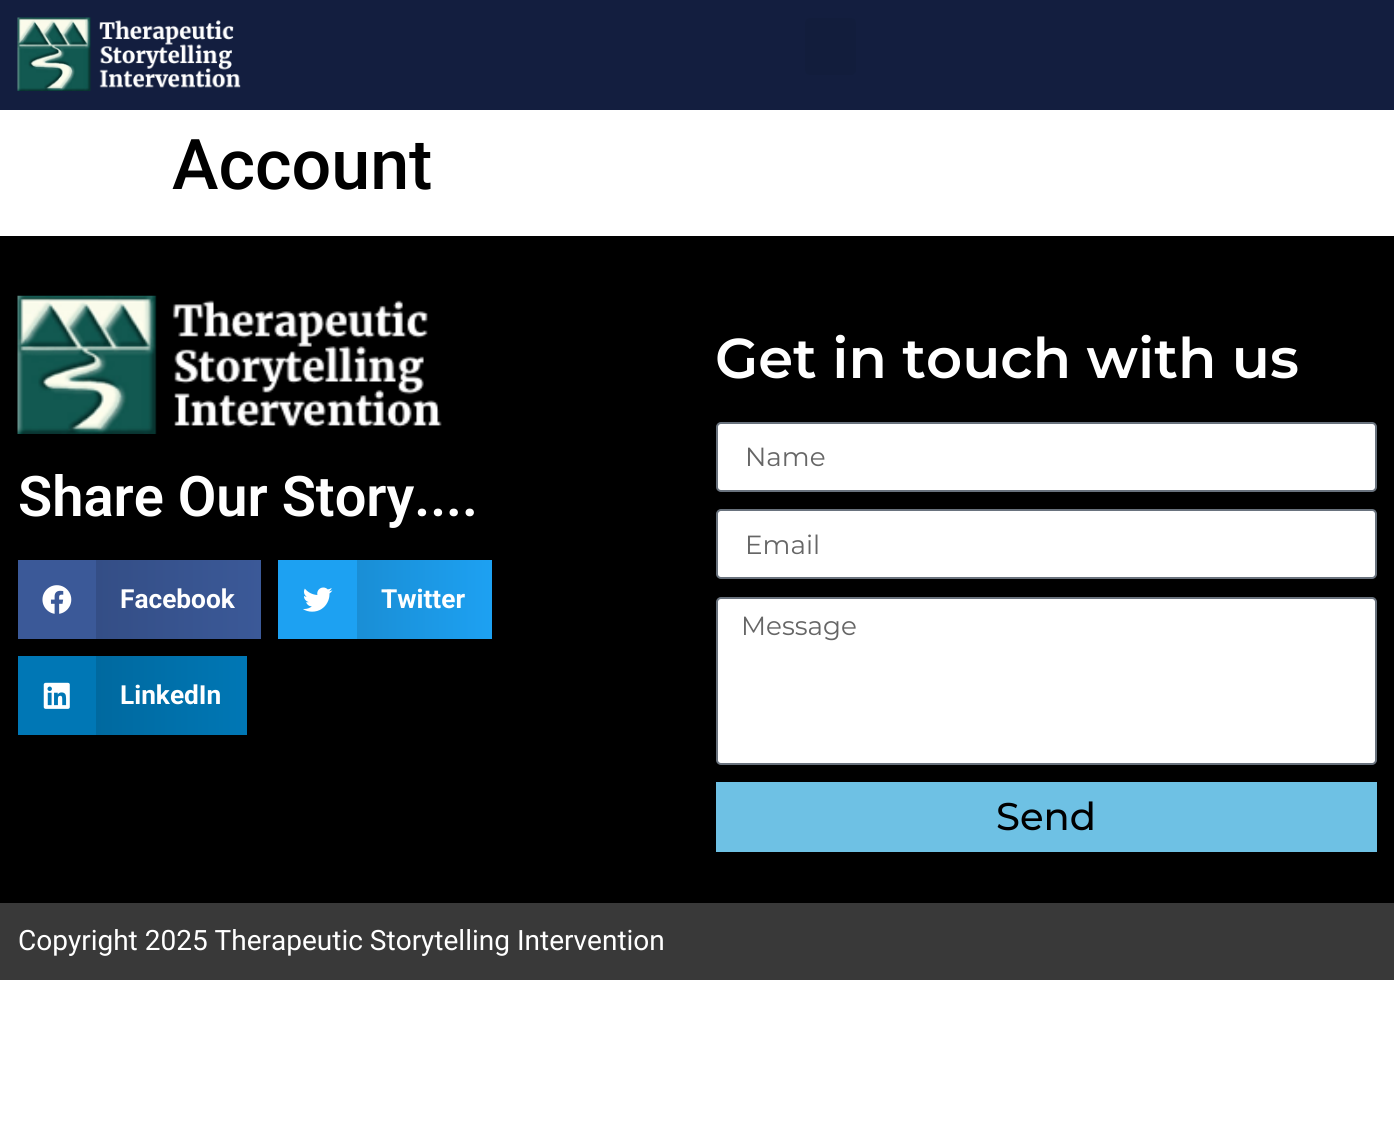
#include <cairo.h>
#include <math.h>
#include <stddef.h>


static void ink(cairo_t *ctx, unsigned color) {
    cairo_set_source_rgb(ctx, (color >> 16) / 255.0, (color >> 8 & 255) / 255.0, (color & 255) / 255.0);
}

static void round_path(cairo_t *ctx, double x, double y, double w, double h, double r) {
    cairo_new_sub_path(ctx);
    cairo_arc(ctx, x + w - r, y + h - r, r, 0, M_PI / 2);
    cairo_arc(ctx, x + r, y + h - r, r, M_PI / 2, M_PI);
    cairo_arc(ctx, x + r, y + r, r, M_PI, 1.5 * M_PI);
    cairo_arc(ctx, x + w - r, y + r, r, 1.5 * M_PI, 2 * M_PI);
    cairo_close_path(ctx);
}

static void paste(cairo_t *ctx, const char *path, double x, double y, double w, double h) {
    cairo_surface_t *image = cairo_image_surface_create_from_png(path);
    cairo_save(ctx);
    cairo_set_source_surface(ctx, image, x, y);
    cairo_rectangle(ctx, x, y, w, h);
    cairo_fill(ctx);
    cairo_restore(ctx);
    cairo_surface_destroy(image);
}

int main(void) {
    cairo_surface_t *surface = cairo_image_surface_create(CAIRO_FORMAT_RGB24, 1394, 1140);
    cairo_t *ctx = cairo_create(surface);
    cairo_font_options_t *options = cairo_font_options_create();
    cairo_font_options_set_hint_metrics(options, CAIRO_HINT_METRICS_OFF);
    cairo_font_options_set_hint_style(options, CAIRO_HINT_STYLE_NONE);
    cairo_set_font_options(ctx, options);
    cairo_set_miter_limit(ctx, 4);
    cairo_pattern_t *gradient;
    ink(ctx, 0xFFFFFF);
    cairo_paint(ctx);
    ink(ctx, 0x131E3F);
    cairo_rectangle(ctx, 0, 0, 1394, 110);
    cairo_fill(ctx);
    paste(ctx, "media/1.png", 17, 17, 224, 74);
    ink(ctx, 0x121D3C);
    round_path(ctx, 805, 18, 51, 57, 5);
    cairo_fill(ctx);
    cairo_select_font_face(ctx, "Roboto Medium", CAIRO_FONT_SLANT_NORMAL, CAIRO_FONT_WEIGHT_NORMAL);
    cairo_set_font_size(ctx, 70);
    ink(ctx, 0x000000);
    cairo_move_to(ctx, 172, 189);
    cairo_show_text(ctx, "Account");
    cairo_rectangle(ctx, 0, 236, 1394, 667);
    cairo_fill(ctx);
    paste(ctx, "media/2.png", 17, 295, 425, 139);
    cairo_select_font_face(ctx, "Roboto SemiBold", CAIRO_FONT_SLANT_NORMAL, CAIRO_FONT_WEIGHT_NORMAL);
    cairo_set_font_size(ctx, 56);
    ink(ctx, 0xFFFFFF);
    cairo_move_to(ctx, 18, 516);
    cairo_show_text(ctx, "Share Our Story....");
    ink(ctx, 0x3B5998);
    cairo_rectangle(ctx, 18, 560, 78, 79);
    cairo_fill(ctx);
    paste(ctx, "media/3.png", 42, 585, 30, 29);
    gradient = cairo_pattern_create_linear(96, 599, 261, 599);
    cairo_pattern_add_color_stop_rgba(gradient, 0, 0.204, 0.306, 0.525, 1);
    cairo_pattern_add_color_stop_rgba(gradient, 1, 0.231, 0.349, 0.596, 1);
    cairo_set_source(ctx, gradient);
    cairo_pattern_destroy(gradient);
    cairo_rectangle(ctx, 96, 560, 165, 79);
    cairo_fill(ctx);
    cairo_select_font_face(ctx, "Roboto", CAIRO_FONT_SLANT_NORMAL, CAIRO_FONT_WEIGHT_BOLD);
    cairo_set_font_size(ctx, 26.25);
    ink(ctx, 0xFFFFFF);
    cairo_move_to(ctx, 120, 608);
    cairo_show_text(ctx, "Facebook");
    ink(ctx, 0x1DA1F2);
    cairo_rectangle(ctx, 278, 560, 79, 79);
    cairo_fill(ctx);
    paste(ctx, "media/4.png", 303, 587, 30, 25);
    gradient = cairo_pattern_create_linear(357, 599, 492, 599);
    cairo_pattern_add_color_stop_rgba(gradient, 0, 0.102, 0.557, 0.835, 1);
    cairo_pattern_add_color_stop_rgba(gradient, 1, 0.114, 0.631, 0.949, 1);
    cairo_set_source(ctx, gradient);
    cairo_pattern_destroy(gradient);
    cairo_rectangle(ctx, 357, 560, 135, 79);
    cairo_fill(ctx);
    ink(ctx, 0xFFFFFF);
    cairo_move_to(ctx, 381, 608);
    cairo_show_text(ctx, "Twitter");
    ink(ctx, 0x0077B5);
    cairo_rectangle(ctx, 18, 656, 78, 79);
    cairo_fill(ctx);
    paste(ctx, "media/5.png", 43, 682, 27, 27);
    gradient = cairo_pattern_create_linear(96, 696, 247, 696);
    cairo_pattern_add_color_stop_rgba(gradient, 0, 0, 0.412, 0.624, 1);
    cairo_pattern_add_color_stop_rgba(gradient, 1, 0, 0.467, 0.71, 1);
    cairo_set_source(ctx, gradient);
    cairo_pattern_destroy(gradient);
    cairo_rectangle(ctx, 96, 656, 151, 79);
    cairo_fill(ctx);
    ink(ctx, 0xFFFFFF);
    cairo_move_to(ctx, 120, 704);
    cairo_show_text(ctx, "LinkedIn");
    cairo_select_font_face(ctx, "Montserrat SemiBold", CAIRO_FONT_SLANT_NORMAL, CAIRO_FONT_WEIGHT_NORMAL);
    cairo_set_font_size(ctx, 56);
    cairo_move_to(ctx, 715, 378);
    cairo_show_text(ctx, "Get in touch with us");
    round_path(ctx, 717, 423, 659, 68, 4);
    cairo_fill_preserve(ctx);
    ink(ctx, 0x69727D);
    cairo_stroke(ctx);
    cairo_select_font_face(ctx, "Montserrat", CAIRO_FONT_SLANT_NORMAL, CAIRO_FONT_WEIGHT_NORMAL);
    cairo_set_font_size(ctx, 26.25);
    ink(ctx, 0x666666);
    cairo_move_to(ctx, 745, 466);
    cairo_show_text(ctx, "Name");
    ink(ctx, 0xFFFFFF);
    round_path(ctx, 717, 510, 659, 68, 4);
    cairo_fill_preserve(ctx);
    ink(ctx, 0x69727D);
    cairo_stroke(ctx);
    ink(ctx, 0x666666);
    cairo_move_to(ctx, 745, 554);
    cairo_show_text(ctx, "Email");
    ink(ctx, 0xFFFFFF);
    round_path(ctx, 717, 598, 659, 166, 4);
    cairo_fill_preserve(ctx);
    ink(ctx, 0x69727D);
    cairo_stroke(ctx);
    ink(ctx, 0x666666);
    cairo_move_to(ctx, 741, 635);
    cairo_show_text(ctx, "Message");
    ink(ctx, 0x6EC1E4);
    cairo_rectangle(ctx, 716, 782, 661, 70);
    cairo_fill(ctx);
    cairo_select_font_face(ctx, "Montserrat Medium", CAIRO_FONT_SLANT_NORMAL, CAIRO_FONT_WEIGHT_NORMAL);
    cairo_set_font_size(ctx, 38.5);
    ink(ctx, 0x000000);
    cairo_move_to(ctx, 996, 830);
    cairo_show_text(ctx, "Send");
    ink(ctx, 0x393939);
    cairo_rectangle(ctx, 0, 903, 1394, 77);
    cairo_fill(ctx);
    cairo_select_font_face(ctx, "Roboto", CAIRO_FONT_SLANT_NORMAL, CAIRO_FONT_WEIGHT_NORMAL);
    cairo_set_font_size(ctx, 28);
    ink(ctx, 0xFFFFFF);
    cairo_move_to(ctx, 18, 950);
    cairo_show_text(ctx, "Copyright 2025 Therapeutic Storytelling Intervention");
    cairo_surface_write_to_png(surface, "image.png");
    cairo_font_options_destroy(options);
    cairo_destroy(ctx);
    cairo_surface_destroy(surface);
    return 0;
}
